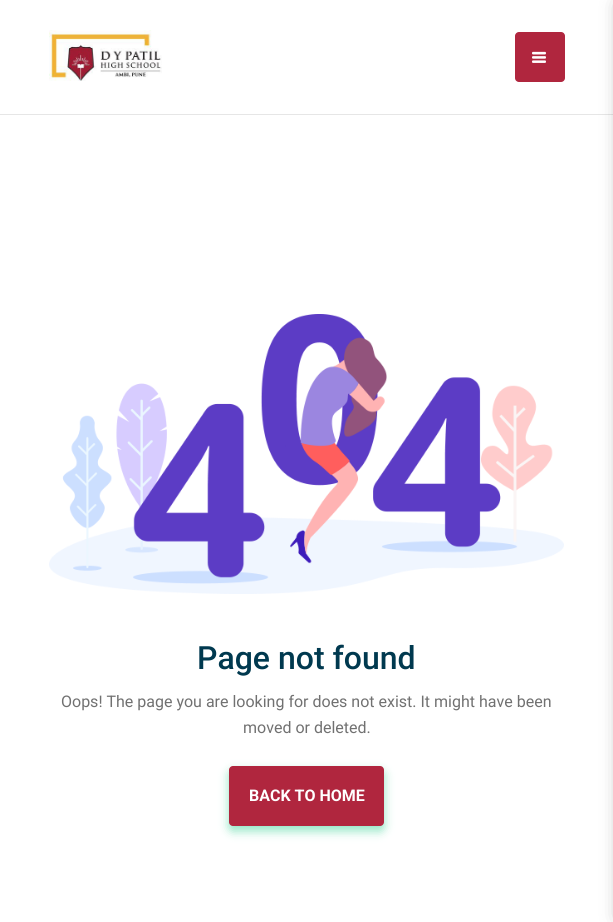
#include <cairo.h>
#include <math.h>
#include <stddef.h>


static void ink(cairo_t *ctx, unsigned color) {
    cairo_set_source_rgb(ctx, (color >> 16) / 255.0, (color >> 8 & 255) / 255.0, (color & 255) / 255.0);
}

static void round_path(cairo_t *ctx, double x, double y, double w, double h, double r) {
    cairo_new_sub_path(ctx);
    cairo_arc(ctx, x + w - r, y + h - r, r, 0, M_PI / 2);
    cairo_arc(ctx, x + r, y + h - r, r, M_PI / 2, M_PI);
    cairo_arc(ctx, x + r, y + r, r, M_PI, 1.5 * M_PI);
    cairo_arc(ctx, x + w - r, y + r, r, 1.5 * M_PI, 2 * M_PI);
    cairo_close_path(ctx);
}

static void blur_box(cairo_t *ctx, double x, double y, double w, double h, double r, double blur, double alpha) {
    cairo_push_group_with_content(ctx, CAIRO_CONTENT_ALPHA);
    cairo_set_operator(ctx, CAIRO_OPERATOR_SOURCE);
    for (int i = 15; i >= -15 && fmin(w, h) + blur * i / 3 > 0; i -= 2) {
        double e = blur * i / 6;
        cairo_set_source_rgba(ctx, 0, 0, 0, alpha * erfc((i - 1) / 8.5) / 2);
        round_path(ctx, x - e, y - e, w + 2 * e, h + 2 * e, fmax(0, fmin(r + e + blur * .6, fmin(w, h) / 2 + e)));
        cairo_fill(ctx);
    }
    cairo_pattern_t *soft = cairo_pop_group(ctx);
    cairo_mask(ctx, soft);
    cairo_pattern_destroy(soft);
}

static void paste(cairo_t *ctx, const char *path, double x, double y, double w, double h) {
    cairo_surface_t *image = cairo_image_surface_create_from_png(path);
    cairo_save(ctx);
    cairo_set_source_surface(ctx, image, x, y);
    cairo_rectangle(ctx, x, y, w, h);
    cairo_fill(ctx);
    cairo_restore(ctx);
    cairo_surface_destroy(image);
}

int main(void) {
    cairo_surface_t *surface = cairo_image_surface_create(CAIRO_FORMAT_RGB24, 613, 922);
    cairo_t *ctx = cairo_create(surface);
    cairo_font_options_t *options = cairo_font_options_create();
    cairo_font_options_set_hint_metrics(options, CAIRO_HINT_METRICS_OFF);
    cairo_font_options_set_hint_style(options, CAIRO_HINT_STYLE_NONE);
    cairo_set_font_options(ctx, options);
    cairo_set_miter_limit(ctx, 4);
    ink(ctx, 0xFFFFFF);
    cairo_paint(ctx);
    ink(ctx, 0xE6E6E6);
    cairo_rectangle(ctx, 0, 114, 613, 1);
    cairo_fill(ctx);
    ink(ctx, 0x000000);
    blur_box(ctx, 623, 5, 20, 912, 0, 10, 0.5);
    paste(ctx, "media/1.png", 49, 30, 113, 51);
    ink(ctx, 0xB0263E);
    round_path(ctx, 515, 32, 50, 50, 4);
    cairo_fill(ctx);
    paste(ctx, "media/2.png", 532, 51, 14, 12);
    paste(ctx, "media/3.png", 49, 314, 515, 280);
    cairo_select_font_face(ctx, "Roboto Medium", CAIRO_FONT_SLANT_NORMAL, CAIRO_FONT_WEIGHT_NORMAL);
    cairo_set_font_size(ctx, 32);
    ink(ctx, 0x00394F);
    cairo_move_to(ctx, 197, 669);
    cairo_show_text(ctx, "Page not found");
    cairo_select_font_face(ctx, "Roboto", CAIRO_FONT_SLANT_NORMAL, CAIRO_FONT_WEIGHT_NORMAL);
    cairo_set_font_size(ctx, 16);
    ink(ctx, 0x717171);
    cairo_move_to(ctx, 61, 707);
    cairo_show_text(ctx, "Oops! The page you are looking for does not exist. It might have been");
    cairo_move_to(ctx, 243, 733);
    cairo_show_text(ctx, "moved or deleted.");
    ink(ctx, 0x23CC88);
    blur_box(ctx, 229, 771, 155, 60, 4, 5, 0.5);
    ink(ctx, 0xB0263E);
    round_path(ctx, 229, 766, 155, 60, 4);
    cairo_fill(ctx);
    cairo_select_font_face(ctx, "Roboto", CAIRO_FONT_SLANT_NORMAL, CAIRO_FONT_WEIGHT_BOLD);
    ink(ctx, 0xFFFFFF);
    cairo_move_to(ctx, 249, 801);
    cairo_show_text(ctx, "BACK TO HOME");
    cairo_surface_write_to_png(surface, "image.png");
    cairo_font_options_destroy(options);
    cairo_destroy(ctx);
    cairo_surface_destroy(surface);
    return 0;
}
